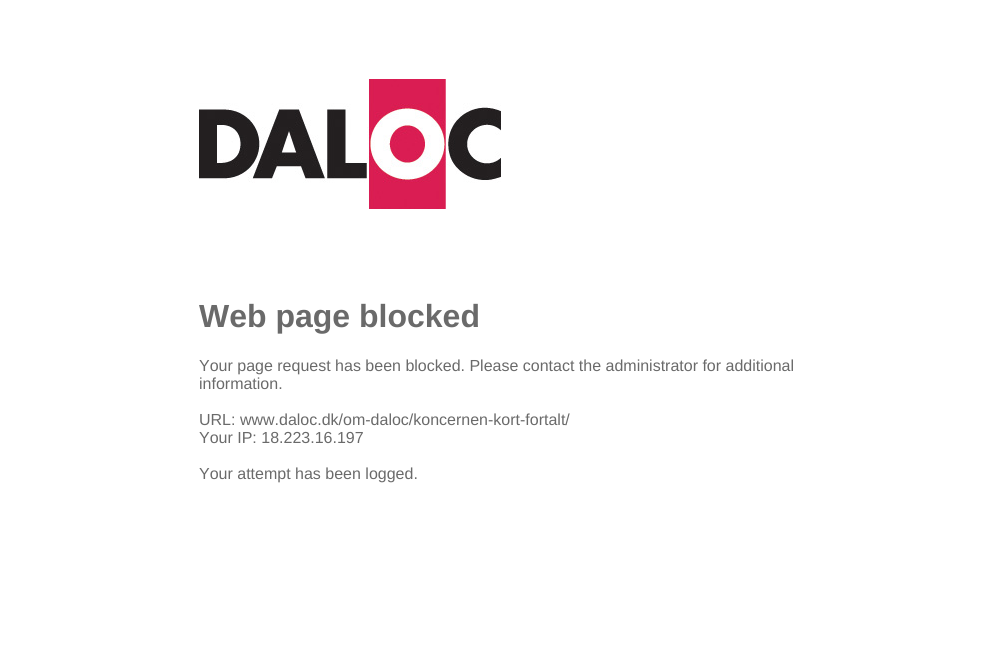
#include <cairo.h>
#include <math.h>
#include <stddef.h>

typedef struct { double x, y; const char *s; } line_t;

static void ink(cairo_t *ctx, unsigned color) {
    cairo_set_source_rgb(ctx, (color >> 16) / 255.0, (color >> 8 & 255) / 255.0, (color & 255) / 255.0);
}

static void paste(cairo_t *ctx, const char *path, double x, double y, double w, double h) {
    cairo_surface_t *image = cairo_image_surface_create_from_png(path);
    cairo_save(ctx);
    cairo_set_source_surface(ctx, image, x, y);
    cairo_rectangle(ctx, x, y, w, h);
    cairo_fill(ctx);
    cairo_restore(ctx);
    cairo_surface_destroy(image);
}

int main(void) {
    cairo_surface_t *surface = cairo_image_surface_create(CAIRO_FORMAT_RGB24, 998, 651);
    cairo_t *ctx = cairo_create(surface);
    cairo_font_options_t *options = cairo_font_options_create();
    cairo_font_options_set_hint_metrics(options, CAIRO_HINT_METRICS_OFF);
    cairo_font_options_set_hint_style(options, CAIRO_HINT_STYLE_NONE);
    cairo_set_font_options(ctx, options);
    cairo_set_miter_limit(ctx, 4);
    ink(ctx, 0xFFFFFF);
    cairo_paint(ctx);
    paste(ctx, "media/1.png", 199, 79, 302, 130);
    cairo_select_font_face(ctx, "Liberation Sans", CAIRO_FONT_SLANT_NORMAL, CAIRO_FONT_WEIGHT_BOLD);
    cairo_set_font_size(ctx, 32);
    ink(ctx, 0x6A6A6A);
    cairo_move_to(ctx, 199, 327);
    cairo_show_text(ctx, "Web page blocked");
    cairo_select_font_face(ctx, "Liberation Sans", CAIRO_FONT_SLANT_NORMAL, CAIRO_FONT_WEIGHT_NORMAL);
    cairo_set_font_size(ctx, 16);
    {
        static const line_t items[] = {
            {199, 371, "Your page request has been blocked. Please contact the administrator for additional"},
            {199, 389, "information."},
            {199, 425, "URL: www.daloc.dk/om-daloc/koncernen-kort-fortalt/"},
            {199, 443, "Your IP: 18.223.16.197"},
            {199, 479, "Your attempt has been logged."},
        };
        for (size_t i = 0; i < sizeof items / sizeof *items; i++) {
            cairo_move_to(ctx, items[i].x, items[i].y);
            cairo_show_text(ctx, items[i].s);
        }
    }
    cairo_surface_write_to_png(surface, "image.png");
    cairo_font_options_destroy(options);
    cairo_destroy(ctx);
    cairo_surface_destroy(surface);
    return 0;
}
